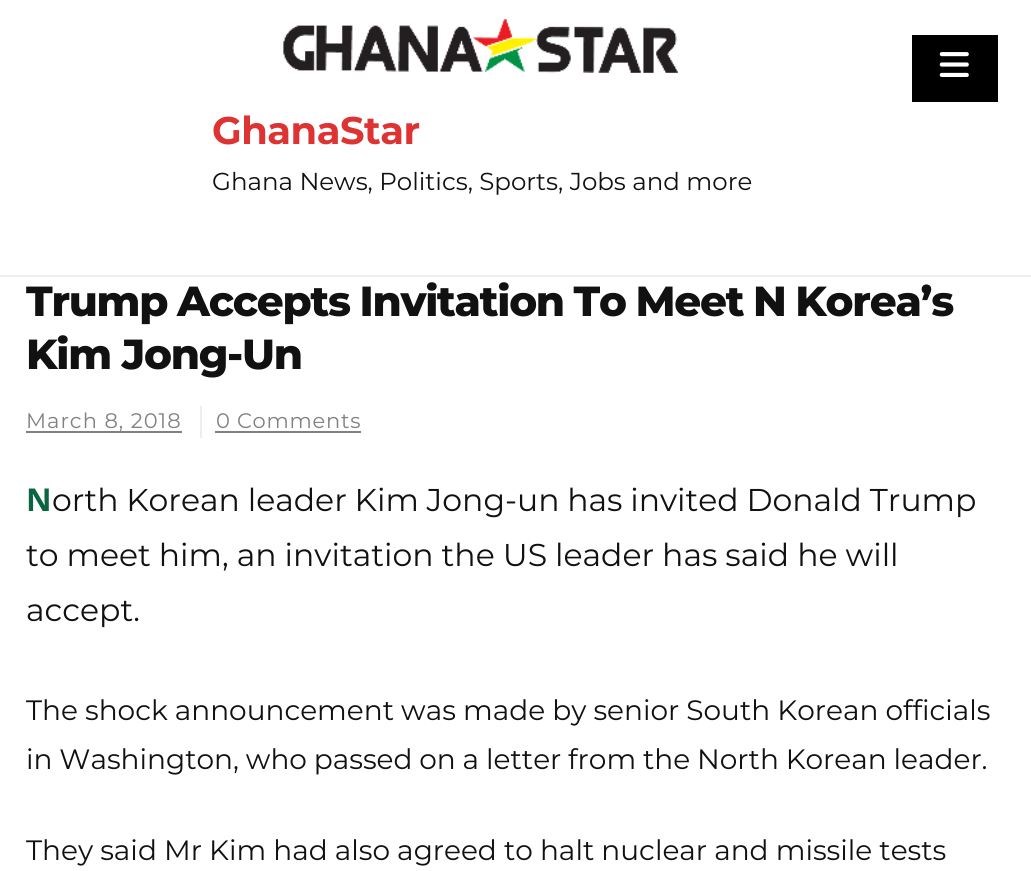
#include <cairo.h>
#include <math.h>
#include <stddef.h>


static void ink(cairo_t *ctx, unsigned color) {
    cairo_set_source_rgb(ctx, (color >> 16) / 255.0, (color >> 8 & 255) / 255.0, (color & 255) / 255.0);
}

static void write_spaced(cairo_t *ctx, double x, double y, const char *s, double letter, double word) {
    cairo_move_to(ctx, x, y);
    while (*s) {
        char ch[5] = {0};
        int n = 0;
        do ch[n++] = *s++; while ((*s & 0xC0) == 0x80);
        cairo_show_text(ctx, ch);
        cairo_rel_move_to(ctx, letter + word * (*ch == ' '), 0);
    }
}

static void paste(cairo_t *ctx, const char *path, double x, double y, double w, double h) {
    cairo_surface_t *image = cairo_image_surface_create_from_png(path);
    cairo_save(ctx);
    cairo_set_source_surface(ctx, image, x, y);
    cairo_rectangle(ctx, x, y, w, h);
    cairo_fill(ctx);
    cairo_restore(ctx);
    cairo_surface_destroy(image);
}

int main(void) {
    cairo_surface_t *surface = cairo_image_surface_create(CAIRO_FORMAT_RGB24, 1031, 871);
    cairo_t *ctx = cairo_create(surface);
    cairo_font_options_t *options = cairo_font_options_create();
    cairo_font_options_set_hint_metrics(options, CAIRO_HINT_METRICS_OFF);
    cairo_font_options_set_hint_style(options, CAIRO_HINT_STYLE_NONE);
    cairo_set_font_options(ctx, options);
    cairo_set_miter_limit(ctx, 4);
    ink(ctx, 0xFFFFFF);
    cairo_paint(ctx);
    ink(ctx, 0xEEEEEE);
    cairo_rectangle(ctx, 0, 275, 1031, 2);
    cairo_fill(ctx);
    ink(ctx, 0x000000);
    cairo_rectangle(ctx, 912, 35, 86, 67);
    cairo_fill(ctx);
    paste(ctx, "media/1.png", 939, 52, 30, 25);
    paste(ctx, "media/2.png", 283, 19, 395, 54);
    cairo_select_font_face(ctx, "Montserrat", CAIRO_FONT_SLANT_NORMAL, CAIRO_FONT_WEIGHT_BOLD);
    cairo_set_font_size(ctx, 38.5);
    ink(ctx, 0xDD3333);
    write_spaced(ctx, 212, 144, "GhanaStar", -0.5, 0);
    cairo_select_font_face(ctx, "Montserrat", CAIRO_FONT_SLANT_NORMAL, CAIRO_FONT_WEIGHT_NORMAL);
    cairo_set_font_size(ctx, 24.5);
    ink(ctx, 0x111111);
    cairo_move_to(ctx, 212, 190);
    cairo_show_text(ctx, "Ghana News, Politics, Sports, Jobs and more");
    cairo_select_font_face(ctx, "Montserrat ExtraBold", CAIRO_FONT_SLANT_NORMAL, CAIRO_FONT_WEIGHT_NORMAL);
    cairo_set_font_size(ctx, 42);
    write_spaced(ctx, 26, 316, "Trump Accepts Invitation To Meet N Korea’s", -1.25, -1.25);
    write_spaced(ctx, 26, 369, "Kim Jong-Un", -1.25, 0);
    ink(ctx, 0xEEEEEE);
    cairo_rectangle(ctx, 200, 406, 2, 32);
    cairo_fill(ctx);
    ink(ctx, 0x818181);
    cairo_rectangle(ctx, 26, 431, 156, 2);
    cairo_fill(ctx);
    cairo_select_font_face(ctx, "Montserrat", CAIRO_FONT_SLANT_NORMAL, CAIRO_FONT_WEIGHT_NORMAL);
    cairo_set_font_size(ctx, 21);
    write_spaced(ctx, 26, 428, "March 8, 2018", 1, 0);
    write_spaced(ctx, 216, 428, "0 Comments", 0.75, 0);
    cairo_rectangle(ctx, 215, 431, 146, 2);
    cairo_fill(ctx);
    cairo_select_font_face(ctx, "Noto Sans", CAIRO_FONT_SLANT_NORMAL, CAIRO_FONT_WEIGHT_BOLD);
    cairo_set_font_size(ctx, 31.5);
    ink(ctx, 0x0A6640);
    cairo_move_to(ctx, 26, 511);
    cairo_show_text(ctx, "N");
    cairo_select_font_face(ctx, "Montserrat", CAIRO_FONT_SLANT_NORMAL, CAIRO_FONT_WEIGHT_NORMAL);
    ink(ctx, 0x111111);
    write_spaced(ctx, 52, 511, "orth Korean leader Kim Jong-un has invited Donald Trump", 0, -0.5);
    write_spaced(ctx, 26, 566, "to meet him, an invitation the US leader has said he will", 0, -0.25);
    cairo_move_to(ctx, 26, 621);
    cairo_show_text(ctx, "accept.");
    cairo_set_font_size(ctx, 28);
    write_spaced(ctx, 26, 720, "The shock announcement was made by senior South Korean officials", 0, -0.25);
    write_spaced(ctx, 26, 769, "in Washington, who passed on a letter from the North Korean leader.", 0, -0.5);
    write_spaced(ctx, 26, 860, "They said Mr Kim had also agreed to halt nuclear and missile tests", 0, -0.25);
    cairo_surface_write_to_png(surface, "image.png");
    cairo_font_options_destroy(options);
    cairo_destroy(ctx);
    cairo_surface_destroy(surface);
    return 0;
}
